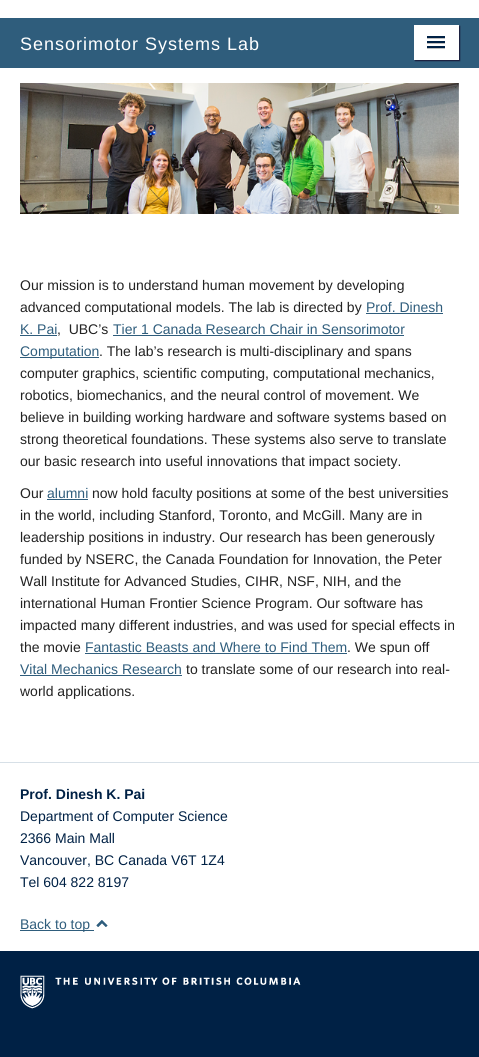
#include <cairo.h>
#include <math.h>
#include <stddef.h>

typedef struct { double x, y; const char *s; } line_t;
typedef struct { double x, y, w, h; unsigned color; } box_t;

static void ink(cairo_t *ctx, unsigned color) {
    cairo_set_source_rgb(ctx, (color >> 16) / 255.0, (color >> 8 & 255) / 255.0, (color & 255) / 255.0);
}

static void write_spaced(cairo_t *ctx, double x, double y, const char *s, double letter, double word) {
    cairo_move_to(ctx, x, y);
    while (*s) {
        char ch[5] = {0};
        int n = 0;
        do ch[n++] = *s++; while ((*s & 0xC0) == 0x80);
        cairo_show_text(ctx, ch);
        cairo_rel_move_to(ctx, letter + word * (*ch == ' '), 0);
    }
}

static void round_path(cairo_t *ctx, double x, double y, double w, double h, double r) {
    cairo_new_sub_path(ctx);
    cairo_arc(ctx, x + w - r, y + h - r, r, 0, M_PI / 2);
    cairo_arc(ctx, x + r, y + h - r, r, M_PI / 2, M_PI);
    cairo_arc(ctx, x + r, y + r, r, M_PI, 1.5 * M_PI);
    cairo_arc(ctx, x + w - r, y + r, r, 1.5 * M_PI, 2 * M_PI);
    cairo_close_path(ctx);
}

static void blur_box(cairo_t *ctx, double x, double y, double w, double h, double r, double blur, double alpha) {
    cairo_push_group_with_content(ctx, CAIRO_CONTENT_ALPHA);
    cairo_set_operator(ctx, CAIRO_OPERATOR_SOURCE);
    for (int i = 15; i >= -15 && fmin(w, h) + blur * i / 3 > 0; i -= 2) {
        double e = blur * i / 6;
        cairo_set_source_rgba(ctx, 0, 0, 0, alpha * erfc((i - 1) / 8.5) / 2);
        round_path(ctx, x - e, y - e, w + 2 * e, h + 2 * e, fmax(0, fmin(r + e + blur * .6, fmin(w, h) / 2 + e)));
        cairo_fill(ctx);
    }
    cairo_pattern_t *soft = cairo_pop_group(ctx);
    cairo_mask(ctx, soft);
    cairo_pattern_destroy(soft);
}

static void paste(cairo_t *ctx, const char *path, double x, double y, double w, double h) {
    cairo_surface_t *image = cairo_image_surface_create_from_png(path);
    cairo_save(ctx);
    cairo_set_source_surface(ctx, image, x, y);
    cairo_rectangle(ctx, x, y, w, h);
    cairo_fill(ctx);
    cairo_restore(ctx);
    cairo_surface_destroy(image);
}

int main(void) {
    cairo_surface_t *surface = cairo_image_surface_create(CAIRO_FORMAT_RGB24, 479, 1057);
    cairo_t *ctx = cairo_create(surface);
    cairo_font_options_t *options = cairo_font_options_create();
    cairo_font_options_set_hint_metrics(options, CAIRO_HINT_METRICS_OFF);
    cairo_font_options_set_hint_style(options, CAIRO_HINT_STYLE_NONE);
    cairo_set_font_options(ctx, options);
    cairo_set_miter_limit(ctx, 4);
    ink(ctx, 0xFFFFFF);
    cairo_paint(ctx);
    ink(ctx, 0x2F5D7C);
    cairo_rectangle(ctx, 0, 18, 479, 50);
    cairo_fill(ctx);
    cairo_select_font_face(ctx, "Liberation Sans", CAIRO_FONT_SLANT_NORMAL, CAIRO_FONT_WEIGHT_NORMAL);
    cairo_set_font_size(ctx, 18);
    ink(ctx, 0xFFFFFF);
    write_spaced(ctx, 20, 50, "Sensorimotor Systems Lab", 1, 0);
    ink(ctx, 0x191938);
    blur_box(ctx, 415, 26, 45, 35, 0, 0.5, 1);
    {
        static const box_t items[] = {
            {414, 25, 45, 35, 0xFFFFFF},
            {427, 38, 18, 1, 0xBFBFBF},
            {427, 36, 18, 2, 0x002145},
            {427, 43, 18, 1, 0xBFBFBF},
            {427, 41, 18, 2, 0x002145},
            {427, 48, 18, 1, 0xBFBFBF},
            {427, 46, 18, 2, 0x002145},
        };
        for (size_t i = 0; i < sizeof items / sizeof *items; i++) {
            ink(ctx, items[i].color);
            cairo_rectangle(ctx, items[i].x, items[i].y, items[i].w, items[i].h);
            cairo_fill(ctx);
        }
    }
    paste(ctx, "media/1.png", 20, 83, 439, 131);
    cairo_set_font_size(ctx, 14);
    ink(ctx, 0x222222);
    cairo_move_to(ctx, 20, 290);
    cairo_show_text(ctx, "Our mission is to understand human movement by developing");
    cairo_move_to(ctx, 20, 312);
    cairo_show_text(ctx, "advanced computational models. The lab is directed by");
    ink(ctx, 0x2F5D7C);
    cairo_move_to(ctx, 366, 312);
    cairo_show_text(ctx, "Prof. Dinesh");
    cairo_rectangle(ctx, 366, 313, 77, 1);
    cairo_fill(ctx);
    cairo_move_to(ctx, 20, 334);
    cairo_show_text(ctx, "K. Pai");
    cairo_rectangle(ctx, 20, 335, 37, 1);
    cairo_fill(ctx);
    ink(ctx, 0x222222);
    cairo_move_to(ctx, 57, 334);
    cairo_show_text(ctx, ",  UBC’s");
    ink(ctx, 0x2F5D7C);
    cairo_move_to(ctx, 113, 334);
    cairo_show_text(ctx, "Tier 1 Canada Research Chair in Sensorimotor");
    cairo_rectangle(ctx, 113, 335, 291, 1);
    cairo_fill(ctx);
    cairo_rectangle(ctx, 20, 357, 79, 1);
    cairo_fill(ctx);
    cairo_move_to(ctx, 20, 356);
    cairo_show_text(ctx, "Computation");
    ink(ctx, 0x222222);
    {
        static const line_t items[] = {
            {99, 356, ". The lab’s research is multi-disciplinary and spans"},
            {20, 378, "computer graphics, scientific computing, computational mechanics,"},
            {20, 400, "robotics, biomechanics, and the neural control of movement. We"},
            {20, 422, "believe in building working hardware and software systems based on"},
            {20, 444, "strong theoretical foundations. These systems also serve to translate"},
            {20, 466, "our basic research into useful innovations that impact society."},
            {20, 498, "Our"},
        };
        for (size_t i = 0; i < sizeof items / sizeof *items; i++) {
            cairo_move_to(ctx, items[i].x, items[i].y);
            cairo_show_text(ctx, items[i].s);
        }
    }
    ink(ctx, 0x2F5D7C);
    cairo_move_to(ctx, 47, 498);
    cairo_show_text(ctx, "alumni");
    cairo_rectangle(ctx, 47, 499, 41, 1);
    cairo_fill(ctx);
    ink(ctx, 0x222222);
    {
        static const line_t items[] = {
            {92, 498, "now hold faculty positions at some of the best universities"},
            {20, 520, "in the world, including Stanford, Toronto, and McGill. Many are in"},
            {20, 542, "leadership positions in industry. Our research has been generously"},
            {20, 564, "funded by NSERC, the Canada Foundation for Innovation, the Peter"},
            {20, 586, "Wall Institute for Advanced Studies, CIHR, NSF, NIH, and the"},
            {20, 608, "international Human Frontier Science Program. Our software has"},
            {20, 630, "impacted many different industries, and was used for special effects in"},
            {20, 652, "the movie"},
        };
        for (size_t i = 0; i < sizeof items / sizeof *items; i++) {
            cairo_move_to(ctx, items[i].x, items[i].y);
            cairo_show_text(ctx, items[i].s);
        }
    }
    ink(ctx, 0x2F5D7C);
    cairo_move_to(ctx, 85, 652);
    cairo_show_text(ctx, "Fantastic Beasts and Where to Find Them");
    cairo_rectangle(ctx, 85, 653, 262, 1);
    cairo_fill(ctx);
    ink(ctx, 0x222222);
    cairo_move_to(ctx, 347, 652);
    cairo_show_text(ctx, ". We spun off");
    ink(ctx, 0x2F5D7C);
    cairo_move_to(ctx, 20, 674);
    cairo_show_text(ctx, "Vital Mechanics Research");
    cairo_rectangle(ctx, 20, 675, 162, 1);
    cairo_fill(ctx);
    ink(ctx, 0x222222);
    cairo_move_to(ctx, 186, 674);
    cairo_show_text(ctx, "to translate some of our research into real-");
    cairo_move_to(ctx, 20, 696);
    cairo_show_text(ctx, "world applications.");
    ink(ctx, 0x002145);
    cairo_rectangle(ctx, 0, 951, 479, 106);
    cairo_fill(ctx);
    ink(ctx, 0xD7E0E7);
    cairo_rectangle(ctx, 0, 762, 479, 1);
    cairo_fill(ctx);
    cairo_select_font_face(ctx, "Liberation Sans", CAIRO_FONT_SLANT_NORMAL, CAIRO_FONT_WEIGHT_BOLD);
    ink(ctx, 0x002145);
    cairo_move_to(ctx, 20, 799);
    cairo_show_text(ctx, "Prof. Dinesh K. Pai");
    cairo_select_font_face(ctx, "Liberation Sans", CAIRO_FONT_SLANT_NORMAL, CAIRO_FONT_WEIGHT_NORMAL);
    {
        static const line_t items[] = {
            {20, 821, "Department of Computer Science"},
            {20, 843, "2366 Main Mall"},
            {20, 865, "Vancouver, BC Canada V6T 1Z4"},
            {20, 887, "Tel 604 822 8197"},
        };
        for (size_t i = 0; i < sizeof items / sizeof *items; i++) {
            cairo_move_to(ctx, items[i].x, items[i].y);
            cairo_show_text(ctx, items[i].s);
        }
    }
    ink(ctx, 0x2F5D7C);
    cairo_rectangle(ctx, 20, 930, 74, 1);
    cairo_fill(ctx);
    cairo_move_to(ctx, 20, 929);
    cairo_show_text(ctx, "Back to top");
    paste(ctx, "media/2.png", 96, 920, 12, 7);
    paste(ctx, "media/3.png", 20, 975, 281, 34);
    cairo_surface_write_to_png(surface, "image.png");
    cairo_font_options_destroy(options);
    cairo_destroy(ctx);
    cairo_surface_destroy(surface);
    return 0;
}
